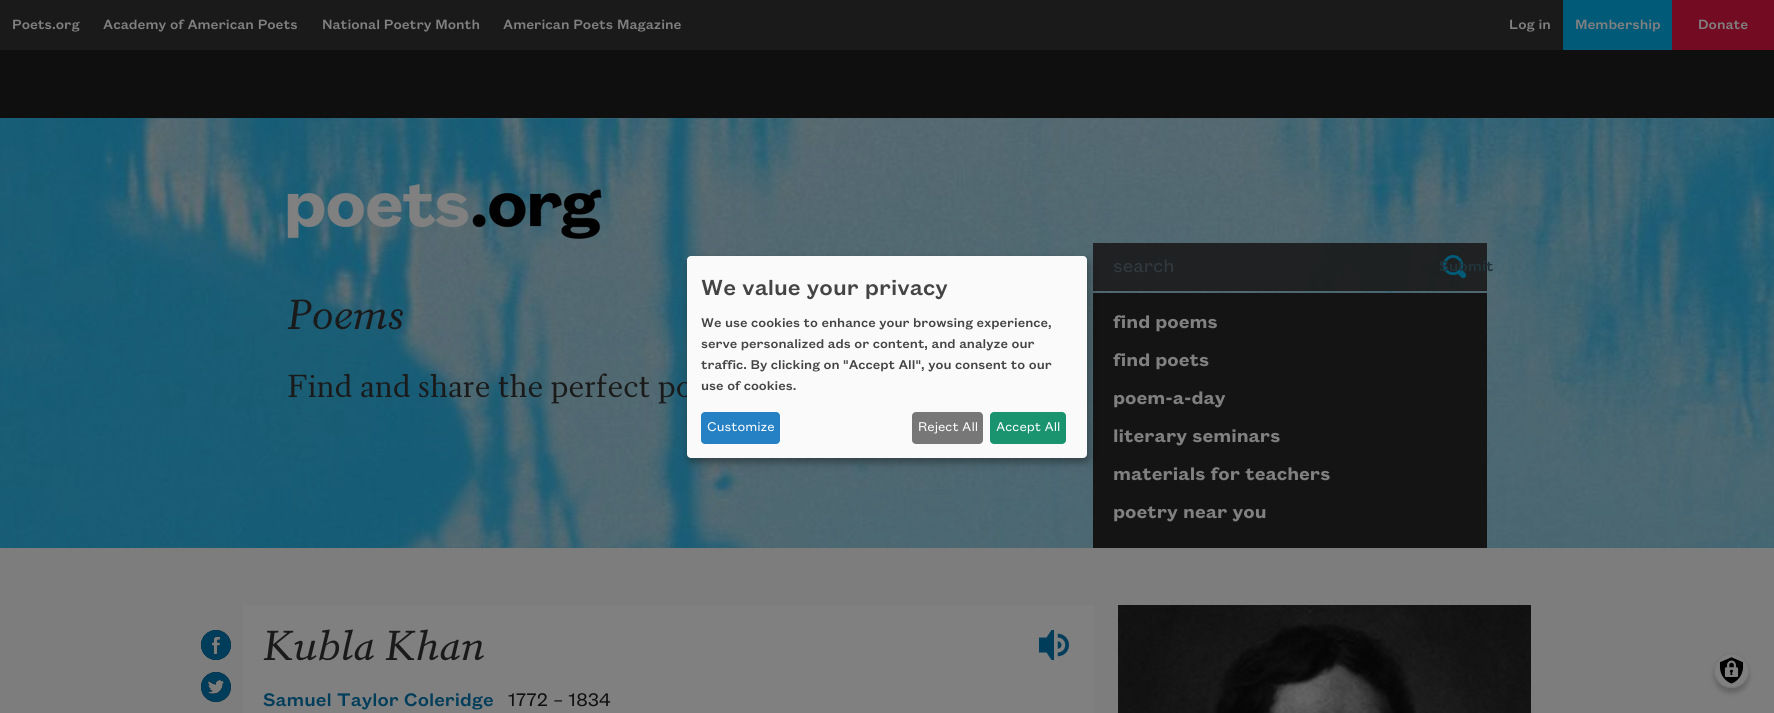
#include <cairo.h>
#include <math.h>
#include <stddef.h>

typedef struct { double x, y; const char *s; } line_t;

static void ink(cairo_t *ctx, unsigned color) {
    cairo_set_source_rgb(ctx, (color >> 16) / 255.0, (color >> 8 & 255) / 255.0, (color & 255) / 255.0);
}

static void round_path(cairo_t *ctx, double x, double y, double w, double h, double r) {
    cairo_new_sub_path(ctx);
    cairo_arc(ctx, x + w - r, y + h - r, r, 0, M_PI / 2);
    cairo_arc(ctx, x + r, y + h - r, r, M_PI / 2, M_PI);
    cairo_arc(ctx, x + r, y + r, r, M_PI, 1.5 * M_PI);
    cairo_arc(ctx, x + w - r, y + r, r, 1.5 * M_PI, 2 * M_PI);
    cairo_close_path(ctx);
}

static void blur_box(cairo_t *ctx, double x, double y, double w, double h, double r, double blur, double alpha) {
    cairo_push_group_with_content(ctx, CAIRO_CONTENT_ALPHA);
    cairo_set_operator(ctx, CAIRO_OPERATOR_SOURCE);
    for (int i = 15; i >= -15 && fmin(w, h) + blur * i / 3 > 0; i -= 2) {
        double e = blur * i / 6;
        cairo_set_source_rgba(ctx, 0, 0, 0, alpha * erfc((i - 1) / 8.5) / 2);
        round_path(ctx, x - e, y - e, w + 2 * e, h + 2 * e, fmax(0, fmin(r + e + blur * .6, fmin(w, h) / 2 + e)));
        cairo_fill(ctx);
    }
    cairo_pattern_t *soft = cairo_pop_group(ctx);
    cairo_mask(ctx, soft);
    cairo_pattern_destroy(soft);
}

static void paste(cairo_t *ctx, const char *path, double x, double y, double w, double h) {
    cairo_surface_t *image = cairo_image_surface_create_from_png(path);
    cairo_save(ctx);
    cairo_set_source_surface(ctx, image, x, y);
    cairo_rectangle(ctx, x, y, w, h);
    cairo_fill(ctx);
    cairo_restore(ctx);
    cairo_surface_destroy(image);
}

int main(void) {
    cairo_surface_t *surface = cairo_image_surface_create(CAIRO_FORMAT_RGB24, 1774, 713);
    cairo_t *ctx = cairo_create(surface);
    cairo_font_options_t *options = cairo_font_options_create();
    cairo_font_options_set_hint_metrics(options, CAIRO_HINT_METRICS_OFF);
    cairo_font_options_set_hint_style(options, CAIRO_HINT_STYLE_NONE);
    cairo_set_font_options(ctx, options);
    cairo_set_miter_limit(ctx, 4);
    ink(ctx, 0x7D7D7D);
    cairo_paint(ctx);
    ink(ctx, 0x1A1A1A);
    cairo_rectangle(ctx, 0, 0, 1563, 50);
    cairo_fill(ctx);
    cairo_select_font_face(ctx, "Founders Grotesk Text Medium", CAIRO_FONT_SLANT_NORMAL, CAIRO_FONT_WEIGHT_NORMAL);
    cairo_set_font_size(ctx, 14.75);
    ink(ctx, 0x808080);
    {
        static const line_t items[] = {
            {12, 29, "Poets.org"},
            {103, 29, "Academy of American Poets"},
            {322, 29, "National Poetry Month"},
            {503, 29, "American Poets Magazine"},
            {1509, 29, "Log in"},
        };
        for (size_t i = 0; i < sizeof items / sizeof *items; i++) {
            cairo_move_to(ctx, items[i].x, items[i].y);
            cairo_show_text(ctx, items[i].s);
        }
    }
    ink(ctx, 0x005A78);
    cairo_rectangle(ctx, 1563, 0, 109, 50);
    cairo_fill(ctx);
    ink(ctx, 0x808080);
    cairo_move_to(ctx, 1575, 29);
    cairo_show_text(ctx, "Membership");
    ink(ctx, 0x730C23);
    cairo_rectangle(ctx, 1672, 0, 102, 50);
    cairo_fill(ctx);
    ink(ctx, 0x808080);
    cairo_move_to(ctx, 1698, 29);
    cairo_show_text(ctx, "Donate");
    ink(ctx, 0x0F0F0F);
    cairo_rectangle(ctx, 0, 50, 1774, 68);
    cairo_fill(ctx);
    paste(ctx, "media/1.png", 0, 118, 1774, 430);
    paste(ctx, "media/2.png", 287, 183, 315, 56);
    cairo_set_source_rgba(ctx, 0.102, 0.102, 0.102, 0.9);
    cairo_rectangle(ctx, 1093, 243, 330, 48);
    cairo_fill(ctx);
    cairo_select_font_face(ctx, "Founders Grotesk Text", CAIRO_FONT_SLANT_NORMAL, CAIRO_FONT_WEIGHT_NORMAL);
    cairo_set_font_size(ctx, 20);
    ink(ctx, 0x323A41);
    cairo_move_to(ctx, 1113, 272);
    cairo_show_text(ctx, "search");
    cairo_set_source_rgba(ctx, 0.102, 0.102, 0.102, 0.9);
    cairo_rectangle(ctx, 1423, 243, 64, 48);
    cairo_fill(ctx);
    paste(ctx, "media/3.png", 1443, 255, 23, 23);
    cairo_select_font_face(ctx, "Founders Grotesk Text Medium", CAIRO_FONT_SLANT_NORMAL, CAIRO_FONT_WEIGHT_NORMAL);
    cairo_set_font_size(ctx, 16);
    ink(ctx, 0x21343B);
    cairo_move_to(ctx, 1439, 271);
    cairo_show_text(ctx, "Submit");
    cairo_select_font_face(ctx, "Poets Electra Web", CAIRO_FONT_SLANT_ITALIC, CAIRO_FONT_WEIGHT_NORMAL);
    cairo_set_font_size(ctx, 40);
    ink(ctx, 0x1A1A1A);
    cairo_move_to(ctx, 287, 329);
    cairo_show_text(ctx, "Poems");
    cairo_select_font_face(ctx, "Poets Electra Web", CAIRO_FONT_SLANT_NORMAL, CAIRO_FONT_WEIGHT_NORMAL);
    cairo_set_font_size(ctx, 30.4);
    cairo_move_to(ctx, 287, 397);
    cairo_show_text(ctx, "Find and share the perfect po");
    ink(ctx, 0x141414);
    cairo_rectangle(ctx, 1093, 293, 394, 255);
    cairo_fill(ctx);
    cairo_select_font_face(ctx, "Founders Grotesk Text SemiBold", CAIRO_FONT_SLANT_NORMAL, CAIRO_FONT_WEIGHT_NORMAL);
    cairo_set_font_size(ctx, 20);
    ink(ctx, 0x808080);
    {
        static const line_t items[] = {
            {1113, 328, "find poems"},
            {1113, 366, "find poets"},
            {1113, 404, "poem-a-day"},
            {1113, 442, "literary seminars"},
            {1113, 480, "materials for teachers"},
            {1113, 518, "poetry near you"},
        };
        for (size_t i = 0; i < sizeof items / sizeof *items; i++) {
            cairo_move_to(ctx, items[i].x, items[i].y);
            cairo_show_text(ctx, items[i].s);
        }
    }
    cairo_rectangle(ctx, 243, 605, 851, 108);
    cairo_fill(ctx);
    paste(ctx, "media/4.png", 201, 630, 30, 30);
    paste(ctx, "media/5.png", 201, 672, 30, 30);
    cairo_select_font_face(ctx, "Poets Electra Web", CAIRO_FONT_SLANT_ITALIC, CAIRO_FONT_WEIGHT_NORMAL);
    cairo_set_font_size(ctx, 40);
    ink(ctx, 0x1A1A1A);
    cairo_move_to(ctx, 263, 660);
    cairo_show_text(ctx, "Kubla Khan");
    paste(ctx, "media/6.png", 1039, 630, 30, 30);
    cairo_select_font_face(ctx, "Founders Grotesk Text Medium", CAIRO_FONT_SLANT_NORMAL, CAIRO_FONT_WEIGHT_NORMAL);
    cairo_set_font_size(ctx, 20);
    ink(ctx, 0x003D5A);
    cairo_move_to(ctx, 263, 706);
    cairo_show_text(ctx, "Samuel Taylor Coleridge");
    cairo_select_font_face(ctx, "Founders Grotesk Text", CAIRO_FONT_SLANT_NORMAL, CAIRO_FONT_WEIGHT_NORMAL);
    ink(ctx, 0x0F0F0F);
    cairo_move_to(ctx, 508, 706);
    cairo_show_text(ctx, "1772 – 1834");
    paste(ctx, "media/7.png", 1118, 605, 413, 108);
    ink(ctx, 0x000000);
    blur_box(ctx, 692, 261, 400, 202, 4, 5, 0.19);
    blur_box(ctx, 687, 260, 400, 202, 4, 3, 0.2);
    ink(ctx, 0xFAFAFA);
    round_path(ctx, 687, 256, 400, 202, 4);
    cairo_fill(ctx);
    cairo_select_font_face(ctx, "Founders Grotesk Text Medium", CAIRO_FONT_SLANT_NORMAL, CAIRO_FONT_WEIGHT_NORMAL);
    cairo_set_font_size(ctx, 24);
    ink(ctx, 0x444444);
    cairo_move_to(ctx, 701, 295);
    cairo_show_text(ctx, "We value your privacy");
    cairo_set_font_size(ctx, 14);
    {
        static const line_t items[] = {
            {701, 327, "We use cookies to enhance your browsing experience,"},
            {701, 348, "serve personalized ads or content, and analyze our"},
            {701, 369, "traffic. By clicking on \"Accept All\", you consent to our"},
            {701, 390, "use of cookies."},
        };
        for (size_t i = 0; i < sizeof items / sizeof *items; i++) {
            cairo_move_to(ctx, items[i].x, items[i].y);
            cairo_show_text(ctx, items[i].s);
        }
    }
    ink(ctx, 0x2581C4);
    round_path(ctx, 701, 412, 79, 32, 4);
    cairo_fill(ctx);
    cairo_select_font_face(ctx, "Founders Grotesk Text", CAIRO_FONT_SLANT_NORMAL, CAIRO_FONT_WEIGHT_NORMAL);
    ink(ctx, 0xFFFFFF);
    cairo_move_to(ctx, 707, 431);
    cairo_show_text(ctx, "Customize");
    ink(ctx, 0x777777);
    round_path(ctx, 912, 412, 71, 32, 4);
    cairo_fill(ctx);
    ink(ctx, 0xFFFFFF);
    cairo_move_to(ctx, 918, 431);
    cairo_show_text(ctx, "Reject All");
    ink(ctx, 0x1A936F);
    round_path(ctx, 990, 412, 76, 32, 4);
    cairo_fill(ctx);
    ink(ctx, 0xFFFFFF);
    cairo_move_to(ctx, 996, 431);
    cairo_show_text(ctx, "Accept All");
    ink(ctx, 0x000000);
    blur_box(ctx, 1714, 658, 35, 35, 17.5, 2.5, 0.2);
    ink(ctx, 0x808080);
    cairo_arc(ctx, 1731.5, 670.5, 17.5, 0, 2 * M_PI);
    cairo_fill(ctx);
    paste(ctx, "media/8.png", 1719, 657, 25, 27);
    cairo_arc(ctx, 1731.5, 670.5, 17, 0, 2 * M_PI);
    ink(ctx, 0x757575);
    cairo_set_line_width(ctx, 1);
    cairo_stroke(ctx);
    cairo_surface_write_to_png(surface, "image.png");
    cairo_font_options_destroy(options);
    cairo_destroy(ctx);
    cairo_surface_destroy(surface);
    return 0;
}
